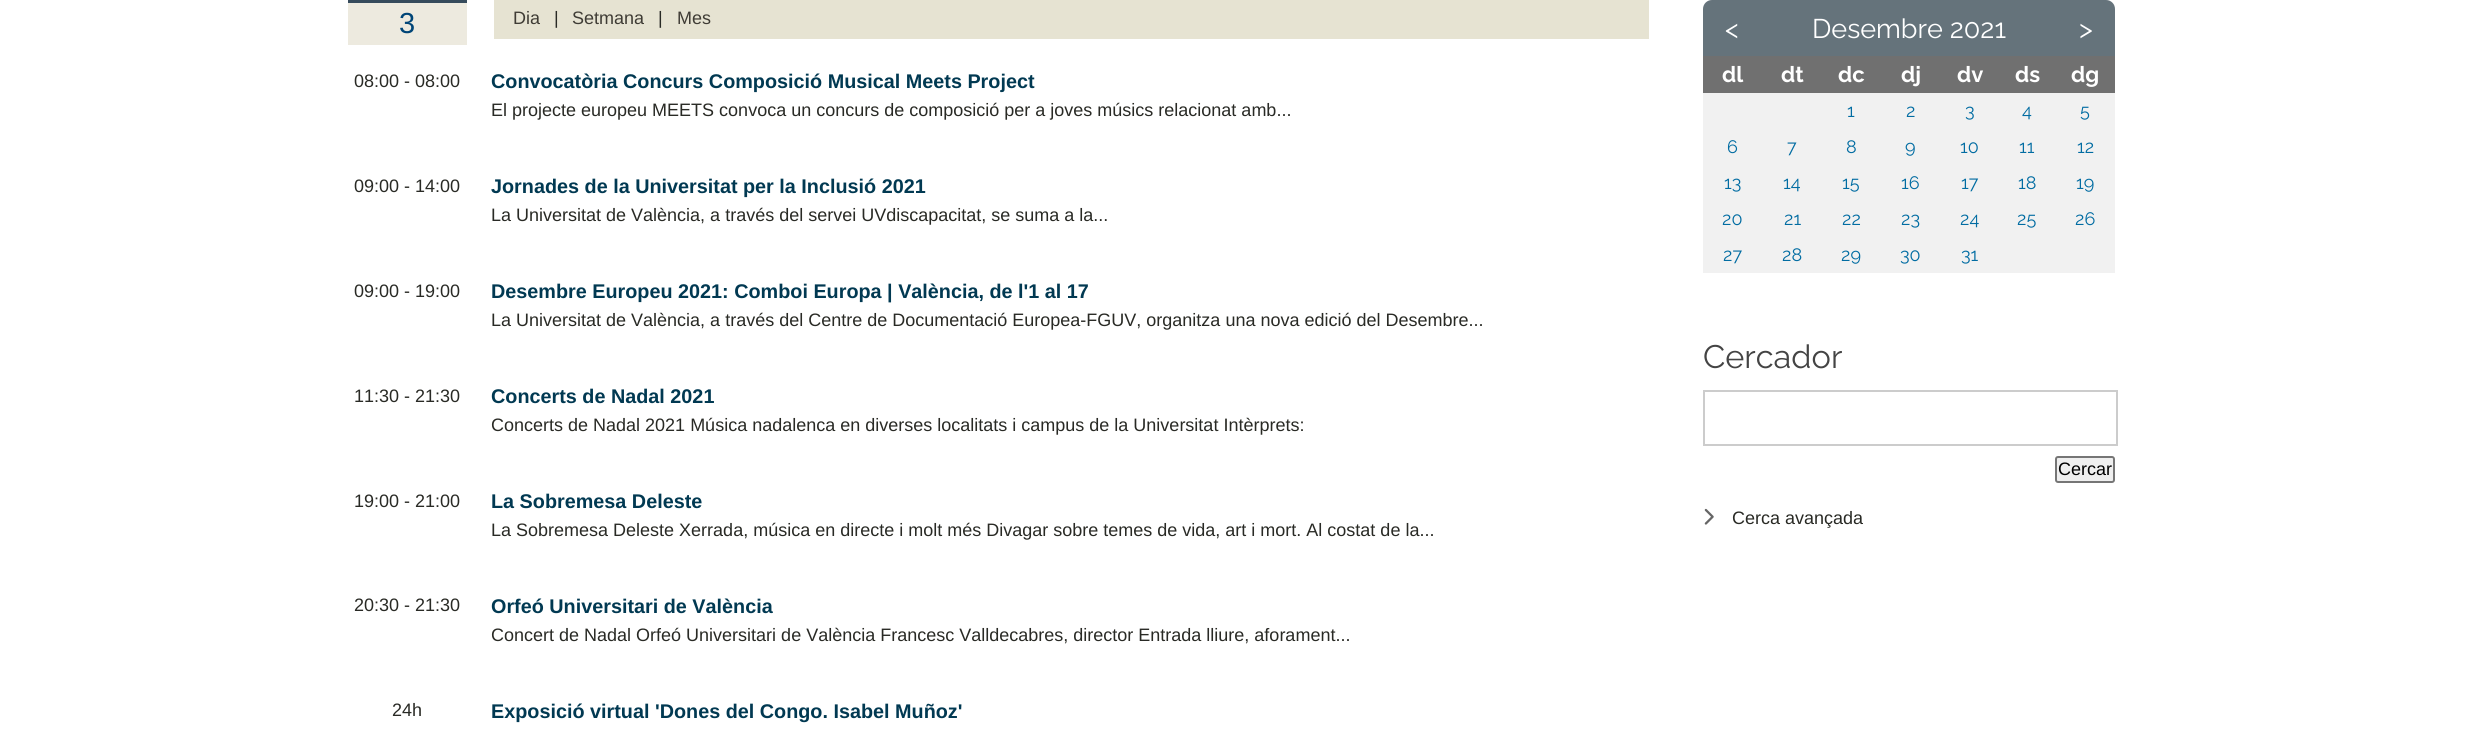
#include <cairo.h>
#include <math.h>
#include <stddef.h>

typedef struct { double x, y; const char *s; } line_t;

static void ink(cairo_t *ctx, unsigned color) {
    cairo_set_source_rgb(ctx, (color >> 16) / 255.0, (color >> 8 & 255) / 255.0, (color & 255) / 255.0);
}

static void round_path(cairo_t *ctx, double x, double y, double w, double h, double r) {
    cairo_new_sub_path(ctx);
    cairo_arc(ctx, x + w - r, y + h - r, r, 0, M_PI / 2);
    cairo_arc(ctx, x + r, y + h - r, r, M_PI / 2, M_PI);
    cairo_arc(ctx, x + r, y + r, r, M_PI, 1.5 * M_PI);
    cairo_arc(ctx, x + w - r, y + r, r, 1.5 * M_PI, 2 * M_PI);
    cairo_close_path(ctx);
}

static void paste(cairo_t *ctx, const char *path, double x, double y, double w, double h) {
    cairo_surface_t *image = cairo_image_surface_create_from_png(path);
    cairo_save(ctx);
    cairo_set_source_surface(ctx, image, x, y);
    cairo_rectangle(ctx, x, y, w, h);
    cairo_fill(ctx);
    cairo_restore(ctx);
    cairo_surface_destroy(image);
}

int main(void) {
    cairo_surface_t *surface = cairo_image_surface_create(CAIRO_FORMAT_RGB24, 2466, 734);
    cairo_t *ctx = cairo_create(surface);
    cairo_font_options_t *options = cairo_font_options_create();
    cairo_font_options_set_hint_metrics(options, CAIRO_HINT_METRICS_OFF);
    cairo_font_options_set_hint_style(options, CAIRO_HINT_STYLE_NONE);
    cairo_set_font_options(ctx, options);
    cairo_set_miter_limit(ctx, 4);
    ink(ctx, 0xFFFFFF);
    cairo_paint(ctx);
    ink(ctx, 0x364B5C);
    cairo_rectangle(ctx, 348, 0, 119, 3);
    cairo_fill(ctx);
    ink(ctx, 0xEDEADF);
    cairo_rectangle(ctx, 348, 3, 119, 42);
    cairo_fill(ctx);
    cairo_select_font_face(ctx, "Liberation Sans", CAIRO_FONT_SLANT_NORMAL, CAIRO_FONT_WEIGHT_NORMAL);
    cairo_set_font_size(ctx, 29);
    ink(ctx, 0x004577);
    cairo_move_to(ctx, 399, 33);
    cairo_show_text(ctx, "3");
    ink(ctx, 0xE6E3D2);
    cairo_rectangle(ctx, 494, 0, 1155, 39);
    cairo_fill(ctx);
    cairo_set_font_size(ctx, 18);
    ink(ctx, 0x3F3C35);
    cairo_move_to(ctx, 513, 24);
    cairo_show_text(ctx, "Dia");
    ink(ctx, 0x292A25);
    cairo_move_to(ctx, 554, 24);
    cairo_show_text(ctx, "|");
    ink(ctx, 0x3F3C35);
    cairo_move_to(ctx, 572, 24);
    cairo_show_text(ctx, "Setmana");
    ink(ctx, 0x292A25);
    cairo_move_to(ctx, 658, 24);
    cairo_show_text(ctx, "|");
    ink(ctx, 0x3F3C35);
    cairo_move_to(ctx, 677, 24);
    cairo_show_text(ctx, "Mes");
    ink(ctx, 0x292A25);
    cairo_move_to(ctx, 354, 87);
    cairo_show_text(ctx, "08:00 - 08:00");
    cairo_select_font_face(ctx, "Liberation Sans", CAIRO_FONT_SLANT_NORMAL, CAIRO_FONT_WEIGHT_BOLD);
    cairo_set_font_size(ctx, 19.8);
    ink(ctx, 0x013952);
    cairo_move_to(ctx, 491, 88);
    cairo_show_text(ctx, "Convocatòria Concurs Composició Musical Meets Project");
    cairo_select_font_face(ctx, "Liberation Sans", CAIRO_FONT_SLANT_NORMAL, CAIRO_FONT_WEIGHT_NORMAL);
    cairo_set_font_size(ctx, 18);
    ink(ctx, 0x292A25);
    cairo_move_to(ctx, 491, 116);
    cairo_show_text(ctx, "El projecte europeu MEETS convoca un concurs de composició per a joves músics relacionat amb...");
    cairo_move_to(ctx, 354, 192);
    cairo_show_text(ctx, "09:00 - 14:00");
    cairo_select_font_face(ctx, "Liberation Sans", CAIRO_FONT_SLANT_NORMAL, CAIRO_FONT_WEIGHT_BOLD);
    cairo_set_font_size(ctx, 19.8);
    ink(ctx, 0x013952);
    cairo_move_to(ctx, 491, 193);
    cairo_show_text(ctx, "Jornades de la Universitat per la Inclusió 2021");
    cairo_select_font_face(ctx, "Liberation Sans", CAIRO_FONT_SLANT_NORMAL, CAIRO_FONT_WEIGHT_NORMAL);
    cairo_set_font_size(ctx, 18);
    ink(ctx, 0x292A25);
    cairo_move_to(ctx, 491, 221);
    cairo_show_text(ctx, "La Universitat de València, a través del servei UVdiscapacitat, se suma a la...");
    cairo_move_to(ctx, 354, 297);
    cairo_show_text(ctx, "09:00 - 19:00");
    cairo_select_font_face(ctx, "Liberation Sans", CAIRO_FONT_SLANT_NORMAL, CAIRO_FONT_WEIGHT_BOLD);
    cairo_set_font_size(ctx, 19.8);
    ink(ctx, 0x013952);
    cairo_move_to(ctx, 491, 298);
    cairo_show_text(ctx, "Desembre Europeu 2021: Comboi Europa | València, de l'1 al 17");
    cairo_select_font_face(ctx, "Liberation Sans", CAIRO_FONT_SLANT_NORMAL, CAIRO_FONT_WEIGHT_NORMAL);
    cairo_set_font_size(ctx, 18);
    ink(ctx, 0x292A25);
    cairo_move_to(ctx, 491, 326);
    cairo_show_text(ctx, "La Universitat de València, a través del Centre de Documentació Europea-FGUV, organitza una nova edició del Desembre...");
    cairo_move_to(ctx, 354, 402);
    cairo_show_text(ctx, "11:30 - 21:30");
    cairo_select_font_face(ctx, "Liberation Sans", CAIRO_FONT_SLANT_NORMAL, CAIRO_FONT_WEIGHT_BOLD);
    cairo_set_font_size(ctx, 19.8);
    ink(ctx, 0x013952);
    cairo_move_to(ctx, 491, 403);
    cairo_show_text(ctx, "Concerts de Nadal 2021");
    cairo_select_font_face(ctx, "Liberation Sans", CAIRO_FONT_SLANT_NORMAL, CAIRO_FONT_WEIGHT_NORMAL);
    cairo_set_font_size(ctx, 18);
    ink(ctx, 0x292A25);
    cairo_move_to(ctx, 491, 431);
    cairo_show_text(ctx, "Concerts de Nadal 2021 Música nadalenca en diverses localitats i campus de la Universitat Intèrprets:");
    cairo_move_to(ctx, 354, 507);
    cairo_show_text(ctx, "19:00 - 21:00");
    cairo_select_font_face(ctx, "Liberation Sans", CAIRO_FONT_SLANT_NORMAL, CAIRO_FONT_WEIGHT_BOLD);
    cairo_set_font_size(ctx, 19.8);
    ink(ctx, 0x013952);
    cairo_move_to(ctx, 491, 508);
    cairo_show_text(ctx, "La Sobremesa Deleste");
    cairo_select_font_face(ctx, "Liberation Sans", CAIRO_FONT_SLANT_NORMAL, CAIRO_FONT_WEIGHT_NORMAL);
    cairo_set_font_size(ctx, 18);
    ink(ctx, 0x292A25);
    cairo_move_to(ctx, 491, 536);
    cairo_show_text(ctx, "La Sobremesa Deleste Xerrada, música en directe i molt més Divagar sobre temes de vida, art i mort. Al costat de la...");
    cairo_move_to(ctx, 354, 611);
    cairo_show_text(ctx, "20:30 - 21:30");
    cairo_select_font_face(ctx, "Liberation Sans", CAIRO_FONT_SLANT_NORMAL, CAIRO_FONT_WEIGHT_BOLD);
    cairo_set_font_size(ctx, 19.8);
    ink(ctx, 0x013952);
    cairo_move_to(ctx, 491, 613);
    cairo_show_text(ctx, "Orfeó Universitari de València");
    cairo_select_font_face(ctx, "Liberation Sans", CAIRO_FONT_SLANT_NORMAL, CAIRO_FONT_WEIGHT_NORMAL);
    cairo_set_font_size(ctx, 18);
    ink(ctx, 0x292A25);
    cairo_move_to(ctx, 491, 641);
    cairo_show_text(ctx, "Concert de Nadal Orfeó Universitari de València Francesc Valldecabres, director Entrada lliure, aforament...");
    cairo_move_to(ctx, 392, 716);
    cairo_show_text(ctx, "24h");
    cairo_select_font_face(ctx, "Liberation Sans", CAIRO_FONT_SLANT_NORMAL, CAIRO_FONT_WEIGHT_BOLD);
    cairo_set_font_size(ctx, 19.8);
    ink(ctx, 0x013952);
    cairo_move_to(ctx, 491, 718);
    cairo_show_text(ctx, "Exposició virtual 'Dones del Congo. Isabel Muñoz'");
    ink(ctx, 0x65737B);
    cairo_new_path(ctx);
    cairo_move_to(ctx, 1712, 0);
    cairo_line_to(ctx, 2106, 0);
    cairo_curve_to(ctx, 2111, 0, 2115, 4, 2115, 9);
    cairo_line_to(ctx, 2115, 56);
    cairo_line_to(ctx, 1703, 56);
    cairo_line_to(ctx, 1703, 9);
    cairo_curve_to(ctx, 1703, 4, 1707, 0, 1712, 0);
    cairo_close_path(ctx);
    cairo_fill(ctx);
    cairo_select_font_face(ctx, "Raleway", CAIRO_FONT_SLANT_NORMAL, CAIRO_FONT_WEIGHT_NORMAL);
    cairo_set_font_size(ctx, 27);
    ink(ctx, 0xFFFFFF);
    {
        static const line_t items[] = {
            {1725, 38, "<"},
            {1812, 38, "Desembre 2021"},
            {2079, 38, ">"},
        };
        for (size_t i = 0; i < sizeof items / sizeof *items; i++) {
            cairo_move_to(ctx, items[i].x, items[i].y);
            cairo_show_text(ctx, items[i].s);
        }
    }
    ink(ctx, 0xF1F1F1);
    cairo_rectangle(ctx, 1703, 93, 412, 180);
    cairo_fill(ctx);
    ink(ctx, 0x707070);
    cairo_rectangle(ctx, 1703, 56, 412, 37);
    cairo_fill(ctx);
    cairo_select_font_face(ctx, "Raleway", CAIRO_FONT_SLANT_NORMAL, CAIRO_FONT_WEIGHT_BOLD);
    cairo_set_font_size(ctx, 22);
    ink(ctx, 0xFFFFFF);
    {
        static const line_t items[] = {
            {1722, 82, "dl"},
            {1781, 82, "dt"},
            {1838, 82, "dc"},
            {1901, 82, "dj"},
            {1957, 82, "dv"},
            {2015, 82, "ds"},
            {2071, 82, "dg"},
        };
        for (size_t i = 0; i < sizeof items / sizeof *items; i++) {
            cairo_move_to(ctx, items[i].x, items[i].y);
            cairo_show_text(ctx, items[i].s);
        }
    }
    cairo_select_font_face(ctx, "Raleway", CAIRO_FONT_SLANT_NORMAL, CAIRO_FONT_WEIGHT_NORMAL);
    cairo_set_font_size(ctx, 18);
    ink(ctx, 0x016CA2);
    {
        static const line_t items[] = {
            {1847, 117, "1"},
            {1906, 117, "2"},
            {1965, 117, "3"},
            {2022, 117, "4"},
            {2080, 117, "5"},
            {1727, 153, "6"},
            {1787, 153, "7"},
            {1846, 153, "8"},
            {1905, 153, "9"},
            {1960, 153, "10"},
            {2019, 153, "11"},
            {2077, 153, "12"},
            {1724, 189, "13"},
            {1783, 189, "14"},
            {1842, 189, "15"},
            {1901, 189, "16"},
            {1961, 189, "17"},
            {2018, 189, "18"},
            {2076, 189, "19"},
            {1722, 225, "20"},
            {1784, 225, "21"},
            {1842, 225, "22"},
            {1901, 225, "23"},
            {1960, 225, "24"},
            {2017, 225, "25"},
            {2075, 225, "26"},
            {1723, 261, "27"},
            {1782, 261, "28"},
            {1841, 261, "29"},
            {1900, 261, "30"},
            {1961, 261, "31"},
        };
        for (size_t i = 0; i < sizeof items / sizeof *items; i++) {
            cairo_move_to(ctx, items[i].x, items[i].y);
            cairo_show_text(ctx, items[i].s);
        }
    }
    cairo_set_font_size(ctx, 32.5);
    ink(ctx, 0x444444);
    cairo_move_to(ctx, 1703, 368);
    cairo_show_text(ctx, "Cercador");
    cairo_rectangle(ctx, 1704, 391, 413, 54);
    ink(ctx, 0xCCCCCC);
    cairo_stroke(ctx);
    ink(ctx, 0xEFEFEF);
    round_path(ctx, 2056, 457, 58, 25, 2);
    cairo_fill_preserve(ctx);
    ink(ctx, 0x767676);
    cairo_stroke(ctx);
    cairo_select_font_face(ctx, "Liberation Sans", CAIRO_FONT_SLANT_NORMAL, CAIRO_FONT_WEIGHT_NORMAL);
    cairo_set_font_size(ctx, 18);
    ink(ctx, 0x000000);
    cairo_move_to(ctx, 2058, 475);
    cairo_show_text(ctx, "Cercar");
    paste(ctx, "media/1.png", 1704, 508, 10, 17);
    ink(ctx, 0x292A25);
    cairo_move_to(ctx, 1732, 524);
    cairo_show_text(ctx, "Cerca avançada");
    cairo_surface_write_to_png(surface, "image.png");
    cairo_font_options_destroy(options);
    cairo_destroy(ctx);
    cairo_surface_destroy(surface);
    return 0;
}
